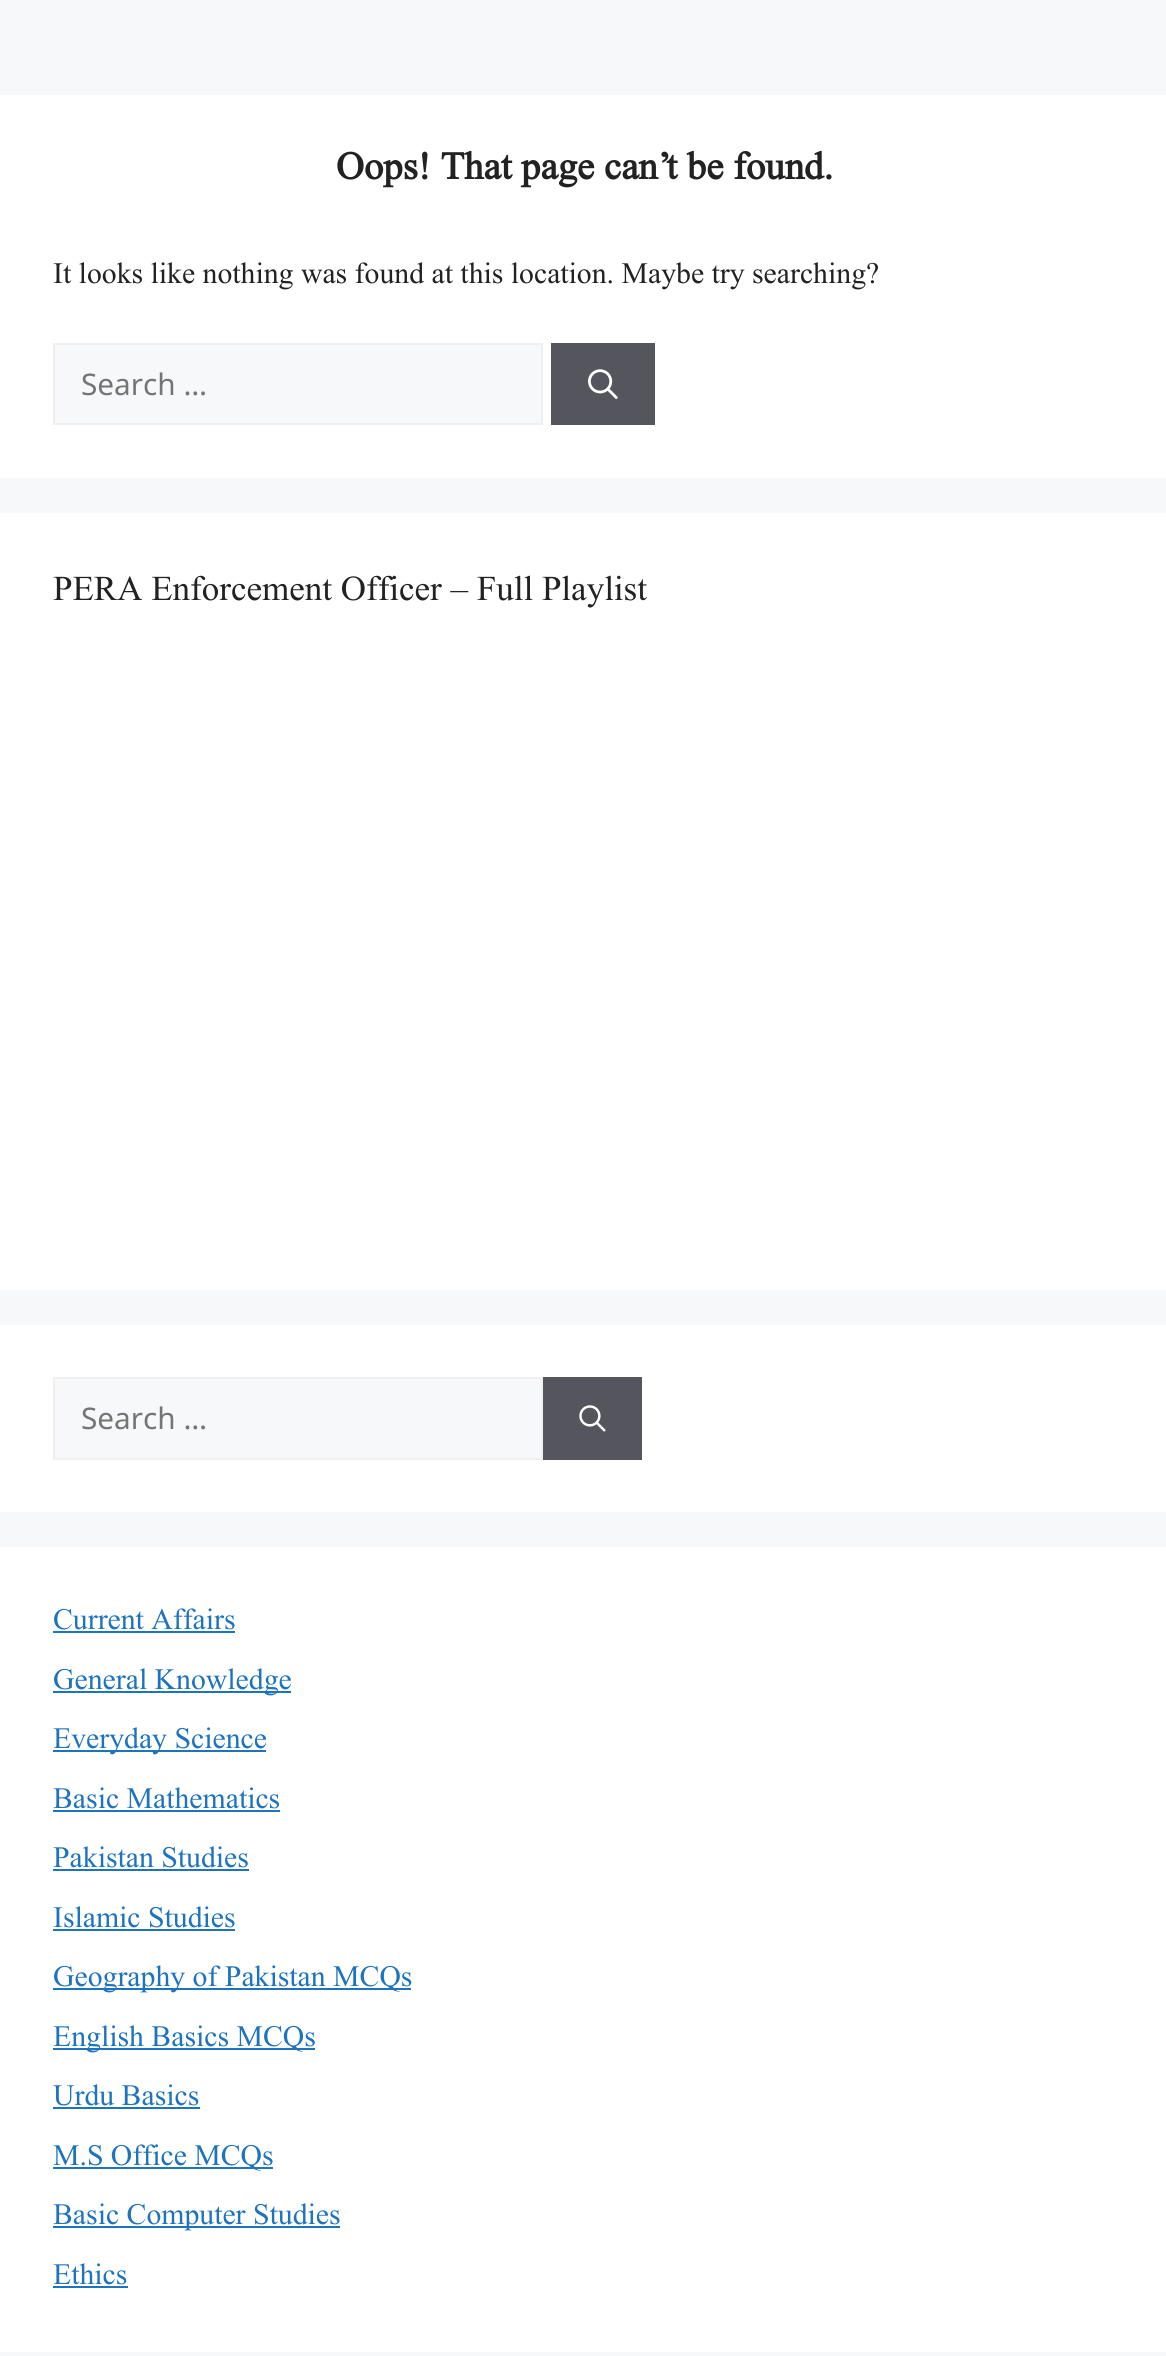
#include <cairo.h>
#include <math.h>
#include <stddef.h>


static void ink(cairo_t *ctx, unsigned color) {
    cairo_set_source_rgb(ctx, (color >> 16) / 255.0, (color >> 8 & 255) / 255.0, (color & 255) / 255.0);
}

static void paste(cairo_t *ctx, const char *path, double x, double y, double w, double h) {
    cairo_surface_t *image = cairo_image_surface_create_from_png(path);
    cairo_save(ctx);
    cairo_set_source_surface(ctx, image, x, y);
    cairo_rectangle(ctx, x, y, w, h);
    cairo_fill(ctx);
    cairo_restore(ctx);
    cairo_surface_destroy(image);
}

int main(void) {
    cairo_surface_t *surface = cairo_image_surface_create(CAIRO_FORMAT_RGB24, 1166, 2356);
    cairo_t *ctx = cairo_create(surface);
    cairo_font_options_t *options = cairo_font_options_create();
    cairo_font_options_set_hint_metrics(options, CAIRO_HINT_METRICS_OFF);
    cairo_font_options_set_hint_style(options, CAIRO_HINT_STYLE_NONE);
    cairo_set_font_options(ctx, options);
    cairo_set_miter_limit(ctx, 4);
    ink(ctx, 0xF7F8F9);
    cairo_paint(ctx);
    ink(ctx, 0xFFFFFF);
    cairo_rectangle(ctx, 0, 95, 1166, 383);
    cairo_fill(ctx);
    cairo_select_font_face(ctx, "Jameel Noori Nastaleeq", CAIRO_FONT_SLANT_NORMAL, CAIRO_FONT_WEIGHT_BOLD);
    cairo_set_font_size(ctx, 38.75);
    ink(ctx, 0x222222);
    cairo_move_to(ctx, 336, 179);
    cairo_show_text(ctx, "Oops! That page can’t be found.");
    cairo_select_font_face(ctx, "Jameel Noori Nastaleeq", CAIRO_FONT_SLANT_NORMAL, CAIRO_FONT_WEIGHT_NORMAL);
    cairo_set_font_size(ctx, 29.75);
    cairo_move_to(ctx, 53, 283);
    cairo_show_text(ctx, "It looks like nothing was found at this location. Maybe try searching?");
    ink(ctx, 0xF7F8F9);
    cairo_rectangle(ctx, 54, 344, 488, 80);
    cairo_fill_preserve(ctx);
    ink(ctx, 0xF0F0F0);
    cairo_stroke(ctx);
    cairo_select_font_face(ctx, "Noto Sans", CAIRO_FONT_SLANT_NORMAL, CAIRO_FONT_WEIGHT_NORMAL);
    ink(ctx, 0x757575);
    cairo_move_to(ctx, 81, 395);
    cairo_show_text(ctx, "Search …");
    ink(ctx, 0x55555E);
    cairo_rectangle(ctx, 551, 343, 104, 82);
    cairo_fill(ctx);
    paste(ctx, "media/1.png", 588, 369, 30, 30);
    ink(ctx, 0xFFFFFF);
    cairo_rectangle(ctx, 0, 513, 1166, 777);
    cairo_fill(ctx);
    cairo_select_font_face(ctx, "Jameel Noori Nastaleeq", CAIRO_FONT_SLANT_NORMAL, CAIRO_FONT_WEIGHT_NORMAL);
    cairo_set_font_size(ctx, 35);
    ink(ctx, 0x222222);
    cairo_move_to(ctx, 53, 600);
    cairo_show_text(ctx, "PERA Enforcement Officer – Full Playlist");
    ink(ctx, 0xFFFFFF);
    cairo_rectangle(ctx, 0, 1325, 1166, 187);
    cairo_fill(ctx);
    ink(ctx, 0xF7F8F9);
    cairo_rectangle(ctx, 54, 1378, 488, 81);
    cairo_fill_preserve(ctx);
    ink(ctx, 0xF0F0F0);
    cairo_stroke(ctx);
    cairo_select_font_face(ctx, "Noto Sans", CAIRO_FONT_SLANT_NORMAL, CAIRO_FONT_WEIGHT_NORMAL);
    cairo_set_font_size(ctx, 29.75);
    ink(ctx, 0x757575);
    cairo_move_to(ctx, 81, 1429);
    cairo_show_text(ctx, "Search …");
    ink(ctx, 0x55555E);
    cairo_rectangle(ctx, 543, 1377, 99, 83);
    cairo_fill(ctx);
    paste(ctx, "media/2.png", 579, 1405, 27, 27);
    ink(ctx, 0xFFFFFF);
    cairo_rectangle(ctx, 0, 1547, 1166, 805);
    cairo_fill(ctx);
    cairo_select_font_face(ctx, "Jameel Noori Nastaleeq", CAIRO_FONT_SLANT_NORMAL, CAIRO_FONT_WEIGHT_NORMAL);
    ink(ctx, 0x1E73BE);
    cairo_move_to(ctx, 53, 1629);
    cairo_show_text(ctx, "Current Affairs");
    cairo_rectangle(ctx, 53, 1631, 182, 2);
    cairo_fill(ctx);
    cairo_rectangle(ctx, 53, 1691, 238, 2);
    cairo_fill(ctx);
    cairo_move_to(ctx, 53, 1689);
    cairo_show_text(ctx, "General Knowledge");
    cairo_rectangle(ctx, 53, 1750, 213, 2);
    cairo_fill(ctx);
    cairo_move_to(ctx, 53, 1748);
    cairo_show_text(ctx, "Everyday Science");
    cairo_move_to(ctx, 53, 1808);
    cairo_show_text(ctx, "Basic Mathematics");
    cairo_rectangle(ctx, 53, 1810, 227, 2);
    cairo_fill(ctx);
    cairo_move_to(ctx, 53, 1867);
    cairo_show_text(ctx, "Pakistan Studies");
    cairo_rectangle(ctx, 53, 1869, 196, 2);
    cairo_fill(ctx);
    cairo_move_to(ctx, 53, 1927);
    cairo_show_text(ctx, "Islamic Studies");
    cairo_rectangle(ctx, 53, 1929, 182, 2);
    cairo_fill(ctx);
    cairo_rectangle(ctx, 53, 1988, 358, 2);
    cairo_fill(ctx);
    cairo_move_to(ctx, 53, 1986);
    cairo_show_text(ctx, "Geography of Pakistan MCQs");
    cairo_rectangle(ctx, 53, 2048, 262, 2);
    cairo_fill(ctx);
    cairo_move_to(ctx, 53, 2046);
    cairo_show_text(ctx, "English Basics MCQs");
    cairo_move_to(ctx, 53, 2105);
    cairo_show_text(ctx, "Urdu Basics");
    cairo_rectangle(ctx, 53, 2107, 147, 2);
    cairo_fill(ctx);
    cairo_rectangle(ctx, 53, 2167, 220, 2);
    cairo_fill(ctx);
    cairo_move_to(ctx, 53, 2165);
    cairo_show_text(ctx, "M.S Office MCQs");
    cairo_rectangle(ctx, 53, 2226, 287, 2);
    cairo_fill(ctx);
    cairo_move_to(ctx, 53, 2224);
    cairo_show_text(ctx, "Basic Computer Studies");
    cairo_move_to(ctx, 53, 2284);
    cairo_show_text(ctx, "Ethics");
    cairo_rectangle(ctx, 53, 2286, 75, 2);
    cairo_fill(ctx);
    cairo_surface_write_to_png(surface, "image.png");
    cairo_font_options_destroy(options);
    cairo_destroy(ctx);
    cairo_surface_destroy(surface);
    return 0;
}
